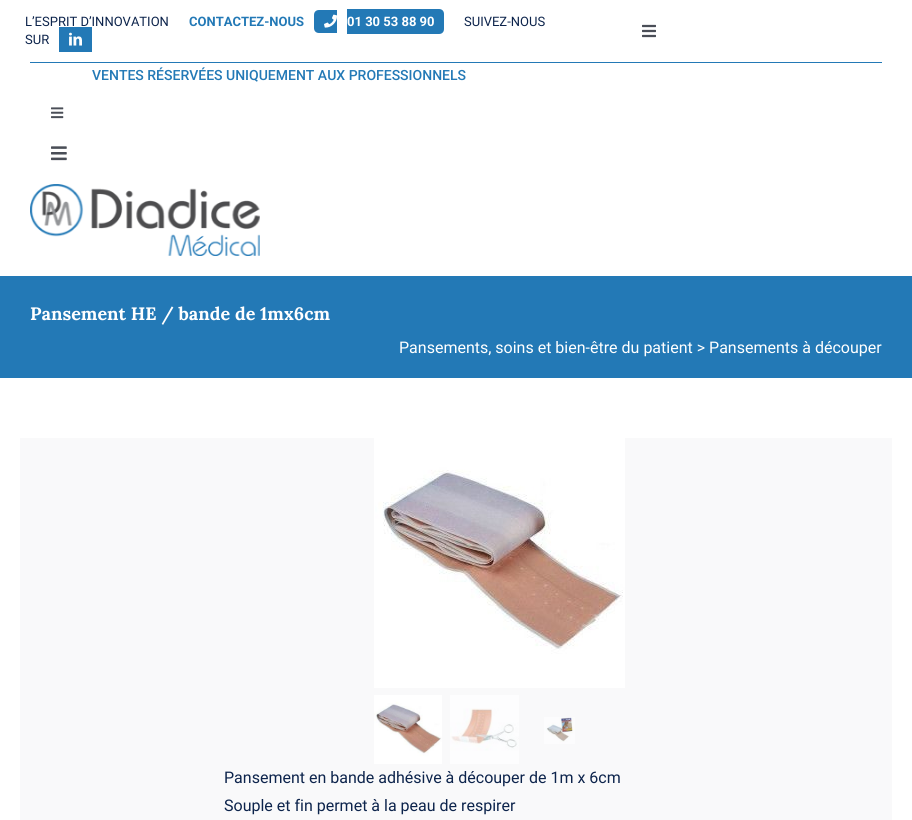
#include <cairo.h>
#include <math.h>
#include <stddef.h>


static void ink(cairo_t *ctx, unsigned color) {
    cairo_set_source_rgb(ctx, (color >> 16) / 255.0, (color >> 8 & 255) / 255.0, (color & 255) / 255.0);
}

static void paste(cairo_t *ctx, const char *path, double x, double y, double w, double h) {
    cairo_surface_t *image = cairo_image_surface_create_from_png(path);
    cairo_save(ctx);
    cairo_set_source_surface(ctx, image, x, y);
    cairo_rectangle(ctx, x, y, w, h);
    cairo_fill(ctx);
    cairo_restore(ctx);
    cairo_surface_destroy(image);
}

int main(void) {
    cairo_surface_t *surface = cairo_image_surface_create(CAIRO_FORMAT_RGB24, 912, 820);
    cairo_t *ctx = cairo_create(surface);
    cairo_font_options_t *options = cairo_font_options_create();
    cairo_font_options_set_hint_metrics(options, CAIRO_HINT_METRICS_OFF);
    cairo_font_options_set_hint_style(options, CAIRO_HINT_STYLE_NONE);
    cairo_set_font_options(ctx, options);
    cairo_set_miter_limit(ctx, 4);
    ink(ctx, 0xFFFFFF);
    cairo_paint(ctx);
    cairo_select_font_face(ctx, "Roboto", CAIRO_FONT_SLANT_NORMAL, CAIRO_FONT_WEIGHT_NORMAL);
    cairo_set_font_size(ctx, 13);
    ink(ctx, 0x0D244C);
    cairo_move_to(ctx, 25, 26);
    cairo_show_text(ctx, "L’ESPRIT D’INNOVATION");
    cairo_select_font_face(ctx, "Roboto", CAIRO_FONT_SLANT_NORMAL, CAIRO_FONT_WEIGHT_BOLD);
    ink(ctx, 0x2379B6);
    cairo_move_to(ctx, 189, 26);
    cairo_show_text(ctx, "CONTACTEZ-NOUS");
    cairo_new_path(ctx);
    cairo_move_to(ctx, 319, 10);
    cairo_line_to(ctx, 337, 10);
    cairo_line_to(ctx, 337, 33);
    cairo_line_to(ctx, 319, 33);
    cairo_curve_to(ctx, 316, 33, 314, 31, 314, 28);
    cairo_line_to(ctx, 314, 15);
    cairo_curve_to(ctx, 314, 12, 316, 10, 319, 10);
    cairo_close_path(ctx);
    cairo_fill(ctx);
    cairo_new_path(ctx);
    cairo_move_to(ctx, 347, 9);
    cairo_line_to(ctx, 439, 9);
    cairo_curve_to(ctx, 442, 9, 444, 11, 444, 14);
    cairo_line_to(ctx, 444, 29);
    cairo_curve_to(ctx, 444, 32, 442, 34, 439, 34);
    cairo_line_to(ctx, 347, 34);
    cairo_close_path(ctx);
    cairo_fill(ctx);
    paste(ctx, "media/1.png", 324, 14, 13, 14);
    ink(ctx, 0xFFFFFF);
    cairo_move_to(ctx, 347, 26);
    cairo_show_text(ctx, "01 30 53 88 90");
    cairo_select_font_face(ctx, "Roboto", CAIRO_FONT_SLANT_NORMAL, CAIRO_FONT_WEIGHT_NORMAL);
    ink(ctx, 0x0D244C);
    cairo_move_to(ctx, 464, 26);
    cairo_show_text(ctx, "SUIVEZ-NOUS");
    cairo_move_to(ctx, 25, 44);
    cairo_show_text(ctx, "SUR");
    ink(ctx, 0x2379B6);
    cairo_rectangle(ctx, 59, 27, 33, 25);
    cairo_fill(ctx);
    paste(ctx, "media/2.png", 69, 32, 13, 14);
    paste(ctx, "media/3.png", 642, 24, 14, 14);
    cairo_rectangle(ctx, 30, 62, 852, 1);
    cairo_fill(ctx);
    cairo_select_font_face(ctx, "Roboto Medium", CAIRO_FONT_SLANT_NORMAL, CAIRO_FONT_WEIGHT_NORMAL);
    cairo_set_font_size(ctx, 14);
    cairo_move_to(ctx, 92, 80);
    cairo_show_text(ctx, "VENTES RÉSERVÉES UNIQUEMENT AUX PROFESSIONNELS");
    paste(ctx, "media/4.png", 51, 107, 13, 12);
    paste(ctx, "media/5.png", 51, 146, 16, 15);
    paste(ctx, "media/6.png", 30, 184, 230, 72);
    cairo_rectangle(ctx, 0, 276, 912, 102);
    cairo_fill(ctx);
    cairo_select_font_face(ctx, "Lora", CAIRO_FONT_SLANT_NORMAL, CAIRO_FONT_WEIGHT_BOLD);
    cairo_set_font_size(ctx, 18);
    ink(ctx, 0xFFFFFF);
    cairo_move_to(ctx, 30, 320);
    cairo_show_text(ctx, "Pansement HE / bande de 1mx6cm");
    cairo_select_font_face(ctx, "Roboto", CAIRO_FONT_SLANT_NORMAL, CAIRO_FONT_WEIGHT_NORMAL);
    cairo_set_font_size(ctx, 16);
    cairo_move_to(ctx, 399, 353);
    cairo_show_text(ctx, "Pansements, soins et bien-être du patient > Pansements à découper");
    ink(ctx, 0xF9F9FA);
    cairo_rectangle(ctx, 20, 438, 872, 382);
    cairo_fill(ctx);
    ink(ctx, 0xFFFFFF);
    cairo_rectangle(ctx, 374, 438, 1, 250);
    cairo_fill(ctx);
    paste(ctx, "media/7.png", 375, 438, 250, 250);
    paste(ctx, "media/8.png", 374, 695, 68, 69);
    paste(ctx, "media/9.png", 450, 695, 69, 69);
    paste(ctx, "media/10.png", 544, 717, 31, 27);
    ink(ctx, 0x0D244C);
    cairo_move_to(ctx, 224, 783);
    cairo_show_text(ctx, "Pansement en bande adhésive à découper de 1m x 6cm");
    cairo_move_to(ctx, 224, 811);
    cairo_show_text(ctx, "Souple et fin permet à la peau de respirer");
    cairo_surface_write_to_png(surface, "image.png");
    cairo_font_options_destroy(options);
    cairo_destroy(ctx);
    cairo_surface_destroy(surface);
    return 0;
}
